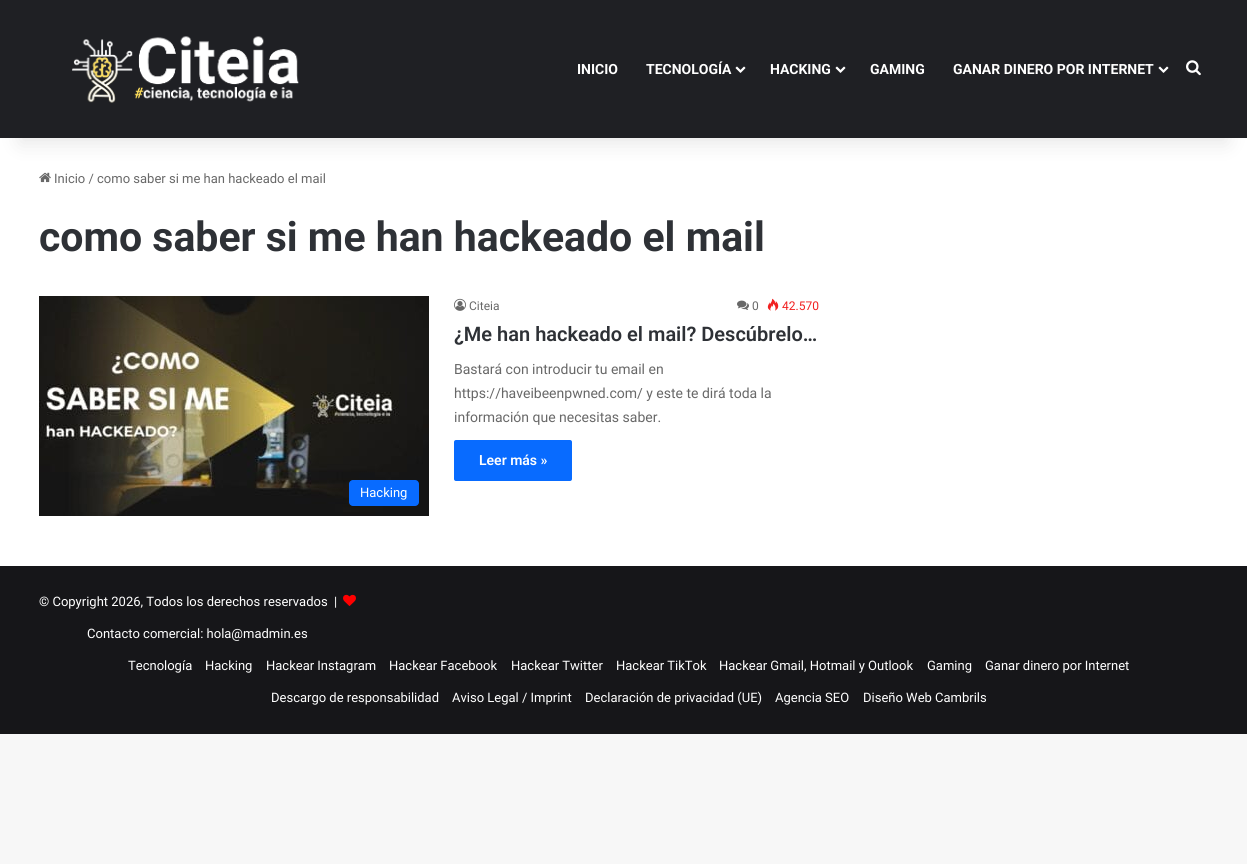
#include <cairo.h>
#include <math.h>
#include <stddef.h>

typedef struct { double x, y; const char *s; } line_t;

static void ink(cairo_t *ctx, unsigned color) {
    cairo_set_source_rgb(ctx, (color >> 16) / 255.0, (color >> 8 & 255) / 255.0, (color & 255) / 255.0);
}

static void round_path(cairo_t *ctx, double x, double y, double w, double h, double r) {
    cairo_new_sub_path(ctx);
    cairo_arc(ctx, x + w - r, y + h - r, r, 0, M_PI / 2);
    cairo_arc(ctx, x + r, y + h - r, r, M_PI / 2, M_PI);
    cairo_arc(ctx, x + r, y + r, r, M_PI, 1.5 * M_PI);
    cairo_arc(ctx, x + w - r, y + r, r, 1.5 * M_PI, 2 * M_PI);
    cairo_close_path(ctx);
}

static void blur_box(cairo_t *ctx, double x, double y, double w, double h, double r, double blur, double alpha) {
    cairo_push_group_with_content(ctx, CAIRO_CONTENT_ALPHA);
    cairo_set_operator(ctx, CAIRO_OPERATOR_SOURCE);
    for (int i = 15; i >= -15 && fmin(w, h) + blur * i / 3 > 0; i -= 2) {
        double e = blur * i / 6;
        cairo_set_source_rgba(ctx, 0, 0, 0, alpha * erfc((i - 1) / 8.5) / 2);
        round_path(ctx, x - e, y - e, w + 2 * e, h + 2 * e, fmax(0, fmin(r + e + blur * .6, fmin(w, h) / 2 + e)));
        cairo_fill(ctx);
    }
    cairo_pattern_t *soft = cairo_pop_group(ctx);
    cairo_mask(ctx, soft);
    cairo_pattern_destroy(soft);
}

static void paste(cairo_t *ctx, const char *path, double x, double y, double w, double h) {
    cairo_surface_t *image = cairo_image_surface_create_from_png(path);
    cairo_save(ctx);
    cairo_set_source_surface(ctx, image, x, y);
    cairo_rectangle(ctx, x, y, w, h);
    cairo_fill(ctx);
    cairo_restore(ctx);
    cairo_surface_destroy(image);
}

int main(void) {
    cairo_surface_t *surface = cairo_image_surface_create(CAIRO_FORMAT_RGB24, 1247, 864);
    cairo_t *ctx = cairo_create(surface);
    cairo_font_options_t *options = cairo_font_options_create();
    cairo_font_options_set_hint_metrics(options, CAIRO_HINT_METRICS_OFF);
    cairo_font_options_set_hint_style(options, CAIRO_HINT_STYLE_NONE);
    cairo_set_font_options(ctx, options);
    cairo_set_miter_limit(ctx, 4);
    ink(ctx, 0xF7F7F7);
    cairo_paint(ctx);
    ink(ctx, 0xFFFFFF);
    cairo_rectangle(ctx, 0, 138, 1247, 428);
    cairo_fill(ctx);
    paste(ctx, "media/4.png", 39, 172, 12, 11);
    ink(ctx, 0x000000);
    blur_box(ctx, 20, 45, 1207, 98, 0, 10, 0.1);
    ink(ctx, 0x1F2024);
    cairo_rectangle(ctx, 0, 0, 1247, 138);
    cairo_fill(ctx);
    paste(ctx, "media/1.png", 72, 36, 227, 67);
    cairo_select_font_face(ctx, "Roboto", CAIRO_FONT_SLANT_NORMAL, CAIRO_FONT_WEIGHT_BOLD);
    cairo_set_font_size(ctx, 14);
    ink(ctx, 0xFFFFFF);
    cairo_move_to(ctx, 577, 74);
    cairo_show_text(ctx, "INICIO");
    cairo_move_to(ctx, 646, 74);
    cairo_show_text(ctx, "TECNOLOGÍA");
    paste(ctx, "media/2.png", 735, 66, 11, 7);
    cairo_move_to(ctx, 770, 74);
    cairo_show_text(ctx, "HACKING");
    paste(ctx, "media/2.png", 835, 66, 11, 7);
    cairo_move_to(ctx, 870, 74);
    cairo_show_text(ctx, "GAMING");
    cairo_move_to(ctx, 953, 74);
    cairo_show_text(ctx, "GANAR DINERO POR INTERNET");
    paste(ctx, "media/2.png", 1158, 66, 11, 7);
    paste(ctx, "media/3.png", 1186, 60, 15, 16);
    cairo_select_font_face(ctx, "Roboto", CAIRO_FONT_SLANT_NORMAL, CAIRO_FONT_WEIGHT_NORMAL);
    cairo_set_font_size(ctx, 13);
    ink(ctx, 0x686868);
    cairo_move_to(ctx, 54, 183);
    cairo_show_text(ctx, "Inicio / como saber si me han hackeado el mail");
    cairo_select_font_face(ctx, "Roboto", CAIRO_FONT_SLANT_NORMAL, CAIRO_FONT_WEIGHT_BOLD);
    cairo_set_font_size(ctx, 41);
    ink(ctx, 0x2E3136);
    cairo_move_to(ctx, 39, 251);
    cairo_show_text(ctx, "como saber si me han hackeado el mail");
    paste(ctx, "media/5.png", 454, 298, 12, 13);
    cairo_select_font_face(ctx, "Roboto", CAIRO_FONT_SLANT_NORMAL, CAIRO_FONT_WEIGHT_NORMAL);
    cairo_set_font_size(ctx, 12);
    ink(ctx, 0x686868);
    cairo_move_to(ctx, 469, 310);
    cairo_show_text(ctx, "Citeia");
    paste(ctx, "media/6.png", 737, 300, 12, 10);
    cairo_move_to(ctx, 752, 310);
    cairo_show_text(ctx, "0");
    paste(ctx, "media/7.png", 767, 298, 12, 13);
    ink(ctx, 0xF12020);
    cairo_move_to(ctx, 782, 310);
    cairo_show_text(ctx, "42.570");
    cairo_select_font_face(ctx, "Roboto SemiBold", CAIRO_FONT_SLANT_NORMAL, CAIRO_FONT_WEIGHT_NORMAL);
    cairo_set_font_size(ctx, 20);
    ink(ctx, 0x2E3136);
    cairo_move_to(ctx, 454, 341);
    cairo_show_text(ctx, "¿Me han hackeado el mail? Descúbrelo…");
    cairo_select_font_face(ctx, "Roboto", CAIRO_FONT_SLANT_NORMAL, CAIRO_FONT_WEIGHT_NORMAL);
    cairo_set_font_size(ctx, 14);
    ink(ctx, 0x686868);
    {
        static const line_t items[] = {
            {454, 374, "Bastará con introducir tu email en"},
            {454, 398, "https://haveibeenpwned.com/ y este te dirá toda la"},
            {454, 422, "información que necesitas saber."},
        };
        for (size_t i = 0; i < sizeof items / sizeof *items; i++) {
            cairo_move_to(ctx, items[i].x, items[i].y);
            cairo_show_text(ctx, items[i].s);
        }
    }
    ink(ctx, 0x086BFF);
    round_path(ctx, 454, 440, 118, 41, 2);
    cairo_fill(ctx);
    cairo_select_font_face(ctx, "Roboto SemiBold", CAIRO_FONT_SLANT_NORMAL, CAIRO_FONT_WEIGHT_NORMAL);
    ink(ctx, 0xFFFFFF);
    cairo_move_to(ctx, 479, 465);
    cairo_show_text(ctx, "Leer más »");
    paste(ctx, "media/8.png", 39, 296, 390, 220);
    ink(ctx, 0x086BFF);
    round_path(ctx, 349, 480, 70, 26, 4);
    cairo_fill(ctx);
    cairo_select_font_face(ctx, "Roboto", CAIRO_FONT_SLANT_NORMAL, CAIRO_FONT_WEIGHT_NORMAL);
    cairo_set_font_size(ctx, 13);
    ink(ctx, 0xFFFFFF);
    cairo_move_to(ctx, 360, 497);
    cairo_show_text(ctx, "Hacking");
    ink(ctx, 0x161619);
    cairo_rectangle(ctx, 0, 566, 1247, 168);
    cairo_fill(ctx);
    ink(ctx, 0xFFFFFF);
    cairo_move_to(ctx, 39, 606);
    cairo_show_text(ctx, "© Copyright 2026, Todos los derechos reservados  |");
    paste(ctx, "media/9.png", 343, 594, 13, 12);
    {
        static const line_t items[] = {
            {87, 638, "Contacto comercial: hola@madmin.es"},
            {128, 670, "Tecnología"},
            {205, 670, "Hacking"},
            {266, 670, "Hackear Instagram"},
            {389, 670, "Hackear Facebook"},
            {511, 670, "Hackear Twitter"},
            {616, 670, "Hackear TikTok"},
            {719, 670, "Hackear Gmail, Hotmail y Outlook"},
            {927, 670, "Gaming"},
            {985, 670, "Ganar dinero por Internet"},
            {271, 702, "Descargo de responsabilidad"},
            {452, 702, "Aviso Legal / Imprint"},
            {585, 702, "Declaración de privacidad (UE)"},
            {775, 702, "Agencia SEO"},
            {863, 702, "Diseño Web Cambrils"},
        };
        for (size_t i = 0; i < sizeof items / sizeof *items; i++) {
            cairo_move_to(ctx, items[i].x, items[i].y);
            cairo_show_text(ctx, items[i].s);
        }
    }
    cairo_surface_write_to_png(surface, "image.png");
    cairo_font_options_destroy(options);
    cairo_destroy(ctx);
    cairo_surface_destroy(surface);
    return 0;
}
